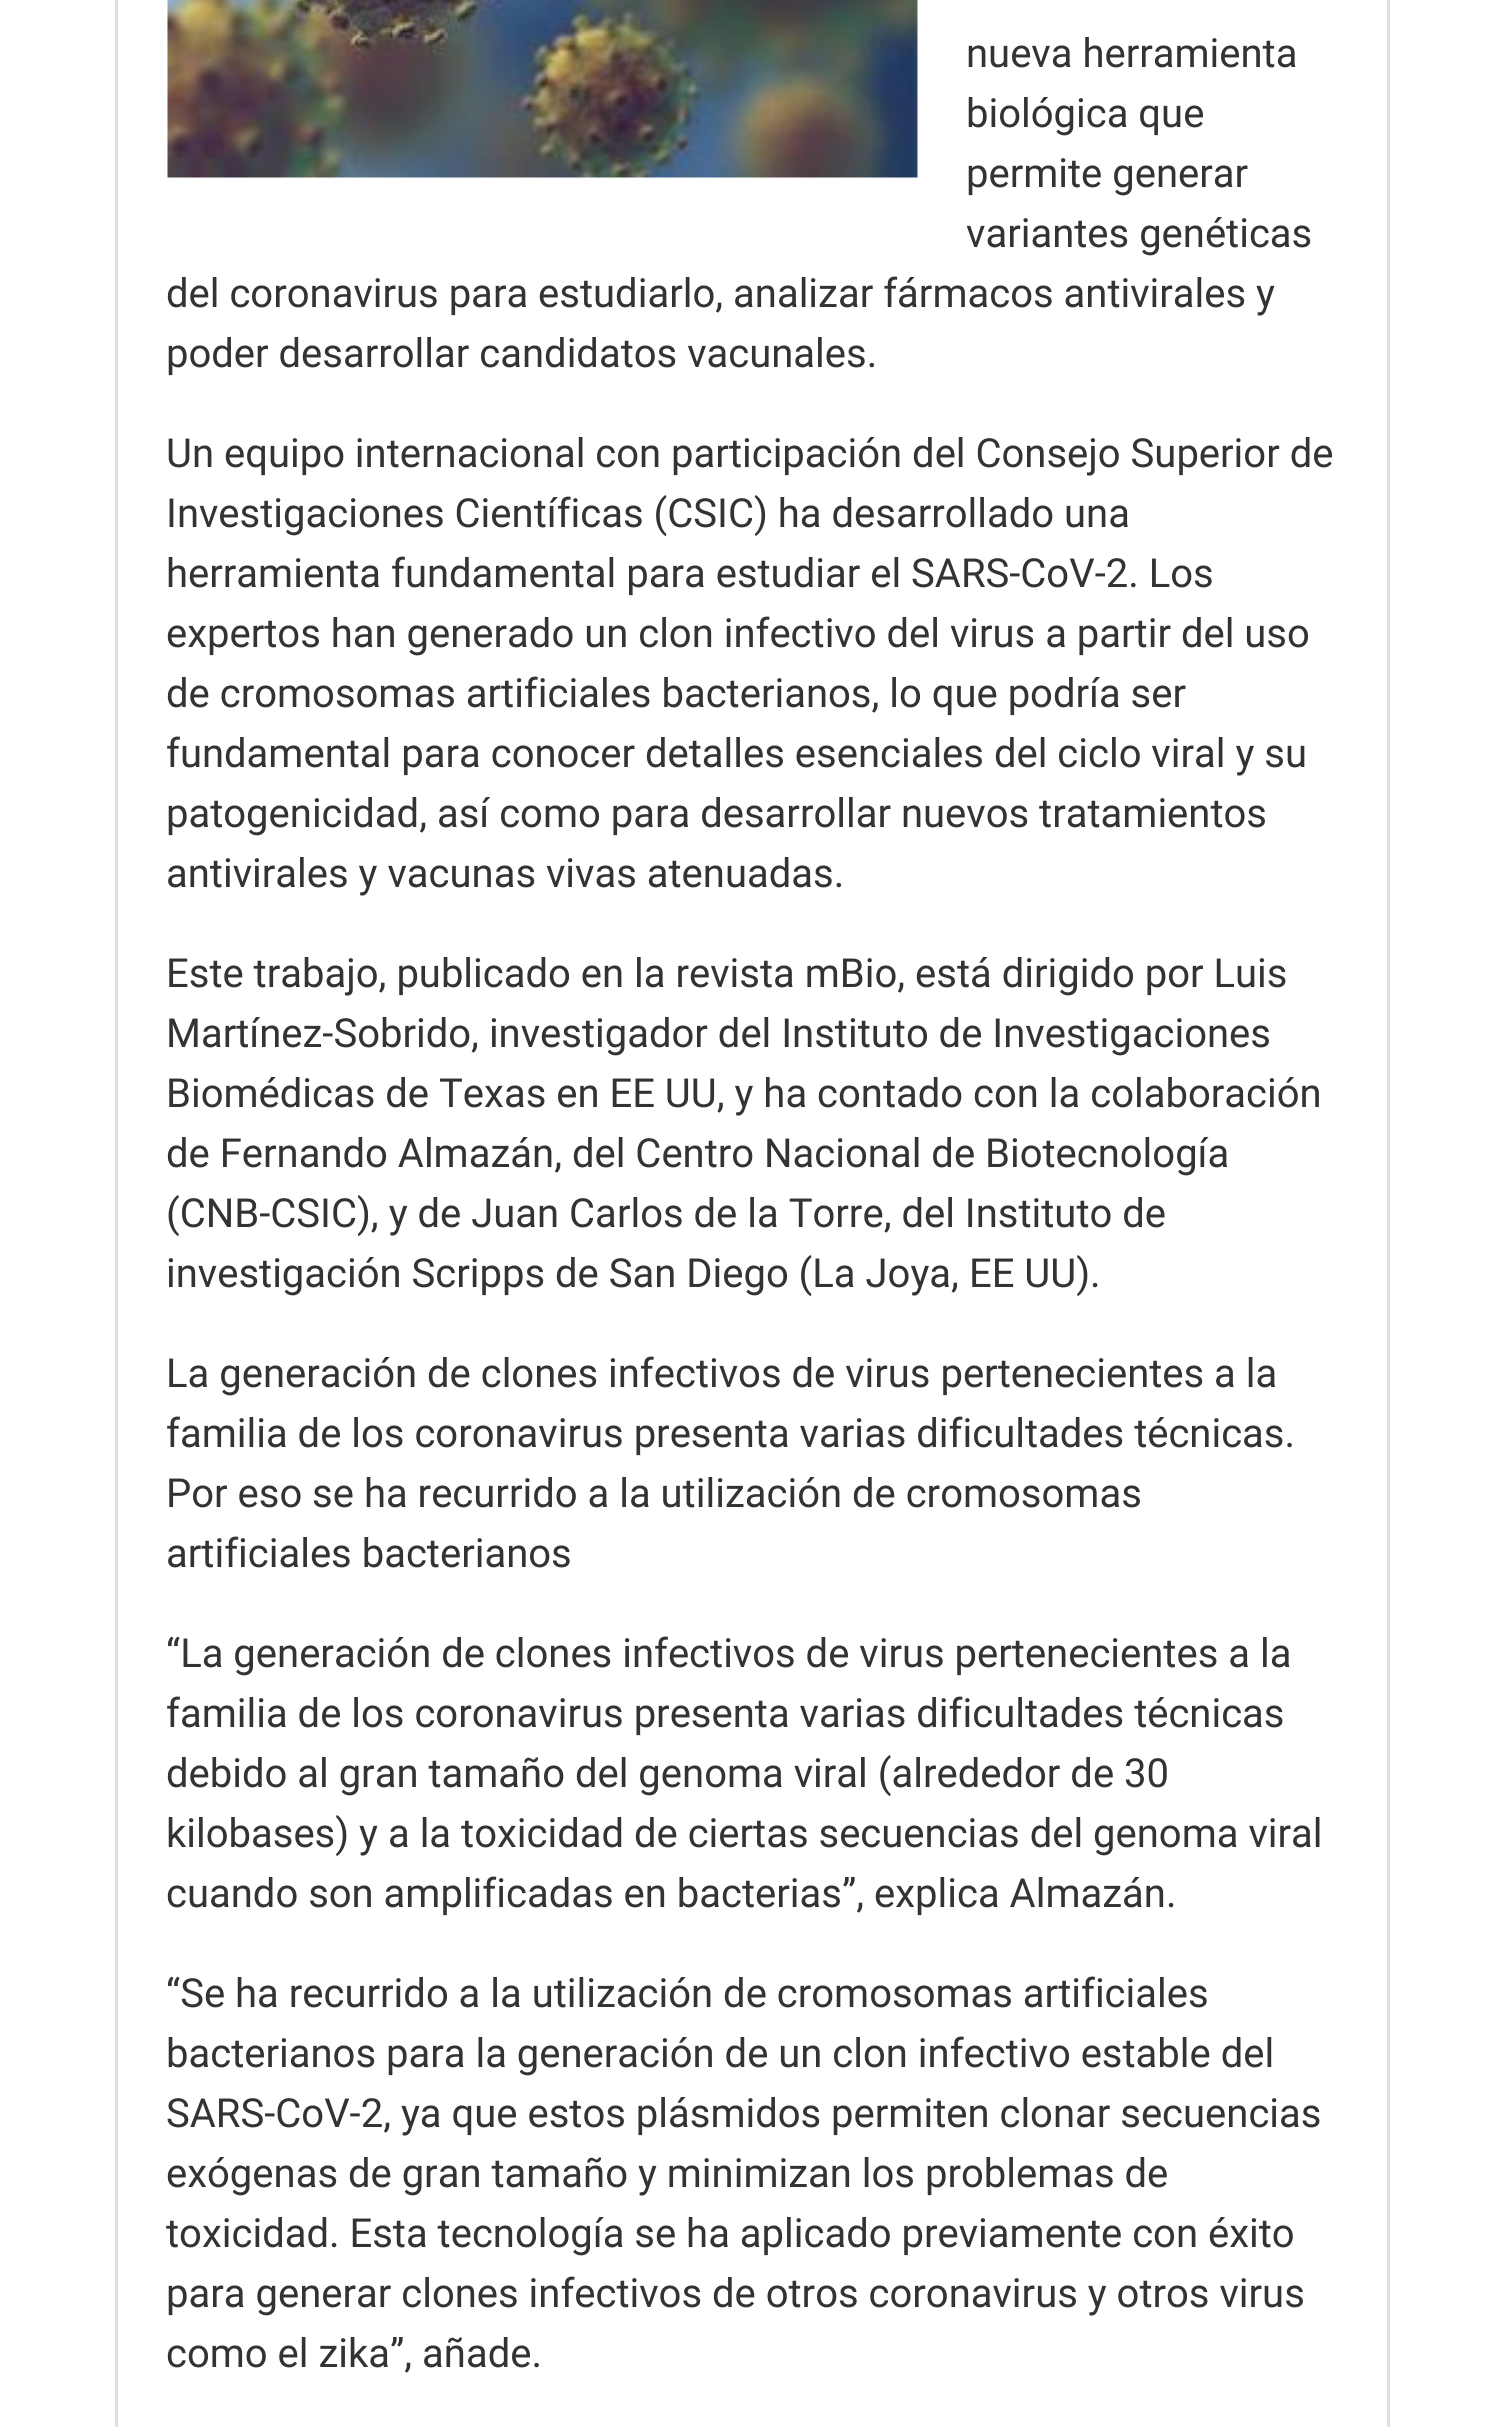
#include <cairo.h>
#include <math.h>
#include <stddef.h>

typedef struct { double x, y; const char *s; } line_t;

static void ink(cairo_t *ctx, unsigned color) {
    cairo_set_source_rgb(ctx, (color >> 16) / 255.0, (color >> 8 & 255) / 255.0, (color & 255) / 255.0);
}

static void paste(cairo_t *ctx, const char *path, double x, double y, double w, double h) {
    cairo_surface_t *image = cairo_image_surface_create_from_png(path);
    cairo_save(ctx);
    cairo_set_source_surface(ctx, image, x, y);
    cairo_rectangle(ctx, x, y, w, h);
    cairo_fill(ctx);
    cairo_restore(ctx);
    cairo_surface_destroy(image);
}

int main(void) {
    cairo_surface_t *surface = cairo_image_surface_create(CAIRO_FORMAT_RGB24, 1502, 2427);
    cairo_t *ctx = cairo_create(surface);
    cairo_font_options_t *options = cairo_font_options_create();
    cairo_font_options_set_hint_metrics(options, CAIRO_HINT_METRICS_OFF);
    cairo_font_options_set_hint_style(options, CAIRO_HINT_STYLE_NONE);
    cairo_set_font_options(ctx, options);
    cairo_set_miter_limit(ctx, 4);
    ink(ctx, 0xFFFFFF);
    cairo_paint(ctx);
    cairo_rectangle(ctx, 116.5, -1.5, 1272, 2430);
    ink(ctx, 0xDFDFDF);
    cairo_set_line_width(ctx, 3);
    cairo_stroke(ctx);
    paste(ctx, "media/1.png", 167, 0, 751, 178);
    cairo_select_font_face(ctx, "Roboto", CAIRO_FONT_SLANT_NORMAL, CAIRO_FONT_WEIGHT_NORMAL);
    cairo_set_font_size(ctx, 40);
    ink(ctx, 0x333333);
    {
        static const line_t items[] = {
            {966, 67, "nueva herramienta"},
            {966, 127, "biológica que"},
            {966, 187, "permite generar"},
            {966, 247, "variantes genéticas"},
            {166, 307, "del coronavirus para estudiarlo, analizar fármacos antivirales y"},
            {166, 367, "poder desarrollar candidatos vacunales."},
            {166, 467, "Un equipo internacional con participación del Consejo Superior de"},
            {166, 527, "Investigaciones Científicas (CSIC) ha desarrollado una"},
            {166, 587, "herramienta fundamental para estudiar el SARS-CoV-2. Los"},
            {166, 647, "expertos han generado un clon infectivo del virus a partir del uso"},
            {166, 707, "de cromosomas artificiales bacterianos, lo que podría ser"},
            {166, 767, "fundamental para conocer detalles esenciales del ciclo viral y su"},
            {166, 827, "patogenicidad, así como para desarrollar nuevos tratamientos"},
            {166, 887, "antivirales y vacunas vivas atenuadas."},
            {166, 987, "Este trabajo, publicado en la revista mBio, está dirigido por Luis"},
            {166, 1047, "Martínez-Sobrido, investigador del Instituto de Investigaciones"},
            {166, 1107, "Biomédicas de Texas en EE UU, y ha contado con la colaboración"},
            {166, 1167, "de Fernando Almazán, del Centro Nacional de Biotecnología"},
            {166, 1227, "(CNB-CSIC), y de Juan Carlos de la Torre, del Instituto de"},
            {166, 1287, "investigación Scripps de San Diego (La Joya, EE UU)."},
            {166, 1387, "La generación de clones infectivos de virus pertenecientes a la"},
            {166, 1447, "familia de los coronavirus presenta varias dificultades técnicas."},
            {166, 1507, "Por eso se ha recurrido a la utilización de cromosomas"},
            {166, 1567, "artificiales bacterianos"},
            {166, 1667, "“La generación de clones infectivos de virus pertenecientes a la"},
            {166, 1727, "familia de los coronavirus presenta varias dificultades técnicas"},
            {166, 1787, "debido al gran tamaño del genoma viral (alrededor de 30"},
            {166, 1847, "kilobases) y a la toxicidad de ciertas secuencias del genoma viral"},
            {166, 1907, "cuando son amplificadas en bacterias”, explica Almazán."},
            {166, 2007, "“Se ha recurrido a la utilización de cromosomas artificiales"},
            {166, 2067, "bacterianos para la generación de un clon infectivo estable del"},
            {166, 2127, "SARS-CoV-2, ya que estos plásmidos permiten clonar secuencias"},
            {166, 2187, "exógenas de gran tamaño y minimizan los problemas de"},
            {166, 2247, "toxicidad. Esta tecnología se ha aplicado previamente con éxito"},
            {166, 2307, "para generar clones infectivos de otros coronavirus y otros virus"},
            {166, 2367, "como el zika”, añade."},
        };
        for (size_t i = 0; i < sizeof items / sizeof *items; i++) {
            cairo_move_to(ctx, items[i].x, items[i].y);
            cairo_show_text(ctx, items[i].s);
        }
    }
    cairo_surface_write_to_png(surface, "image.png");
    cairo_font_options_destroy(options);
    cairo_destroy(ctx);
    cairo_surface_destroy(surface);
    return 0;
}
